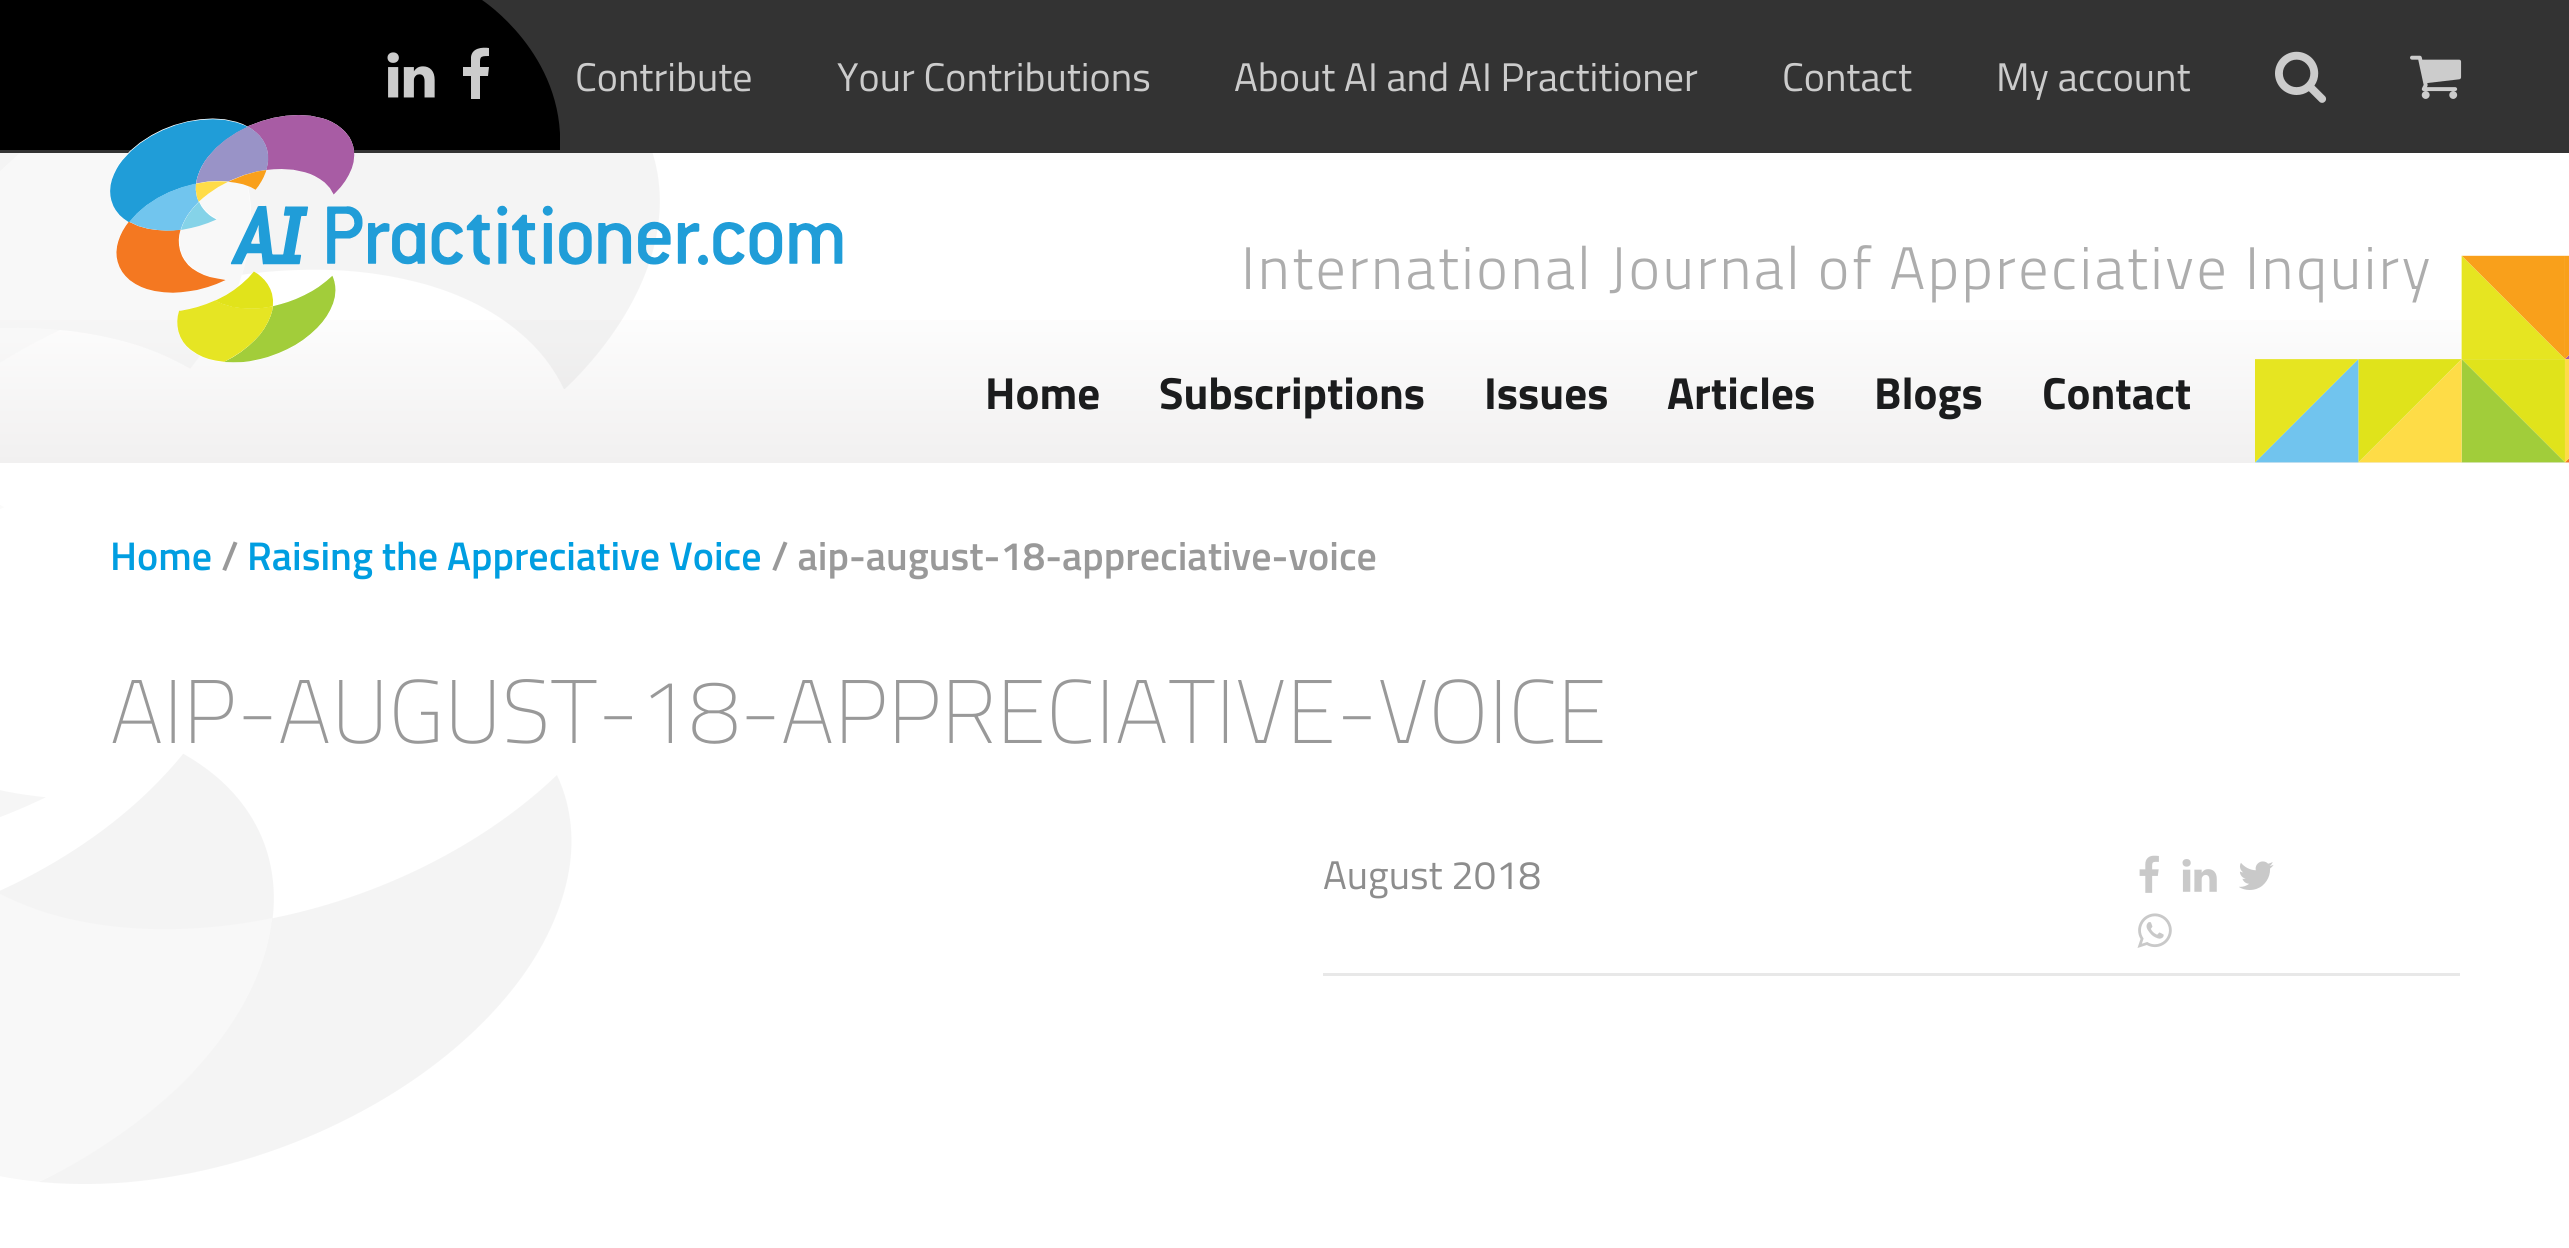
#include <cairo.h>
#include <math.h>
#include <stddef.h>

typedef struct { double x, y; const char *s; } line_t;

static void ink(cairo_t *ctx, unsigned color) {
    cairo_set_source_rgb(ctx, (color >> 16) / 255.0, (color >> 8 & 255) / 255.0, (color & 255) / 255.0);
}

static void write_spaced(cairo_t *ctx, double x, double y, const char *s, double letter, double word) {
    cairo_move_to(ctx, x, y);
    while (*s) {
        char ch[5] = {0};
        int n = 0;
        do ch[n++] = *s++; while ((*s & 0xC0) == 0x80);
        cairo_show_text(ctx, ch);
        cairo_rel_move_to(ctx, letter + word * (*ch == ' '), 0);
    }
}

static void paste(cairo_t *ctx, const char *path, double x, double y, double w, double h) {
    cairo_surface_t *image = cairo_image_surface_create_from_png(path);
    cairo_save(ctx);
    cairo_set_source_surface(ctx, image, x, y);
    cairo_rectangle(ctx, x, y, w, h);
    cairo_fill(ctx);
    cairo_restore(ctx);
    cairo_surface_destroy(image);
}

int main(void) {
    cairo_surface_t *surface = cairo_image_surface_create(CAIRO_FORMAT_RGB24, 2569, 1248);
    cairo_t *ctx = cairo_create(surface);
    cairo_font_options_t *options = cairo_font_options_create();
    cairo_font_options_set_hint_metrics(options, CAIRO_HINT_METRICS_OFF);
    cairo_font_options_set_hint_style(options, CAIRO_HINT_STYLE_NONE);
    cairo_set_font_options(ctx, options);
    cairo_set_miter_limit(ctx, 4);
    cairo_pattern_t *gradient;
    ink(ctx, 0xFFFFFF);
    cairo_paint(ctx);
    ink(ctx, 0x333333);
    cairo_rectangle(ctx, 0, 0, 2569, 153);
    cairo_fill(ctx);
    cairo_save(ctx);
    cairo_rectangle(ctx, 0, 0, 560, 150);
    cairo_clip(ctx);
    ink(ctx, 0x000000);
    cairo_new_path(ctx);
    cairo_move_to(ctx, -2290, 0);
    cairo_line_to(ctx, 482, 0);
    cairo_curve_to(ctx, 482, 0, 565, 54, 560, 150);
    cairo_line_to(ctx, -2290, 150);
    cairo_close_path(ctx);
    cairo_fill(ctx);
    cairo_restore(ctx);
    paste(ctx, "media/1.png", 387, 52, 48, 46);
    ink(ctx, 0xCCCCCC);
    cairo_new_path(ctx);
    cairo_move_to(ctx, 489, 48);
    cairo_line_to(ctx, 489, 56);
    cairo_curve_to(ctx, 479, 56, 480, 57, 480, 67);
    cairo_line_to(ctx, 489, 67);
    cairo_line_to(ctx, 488, 76);
    cairo_line_to(ctx, 480, 76);
    cairo_line_to(ctx, 480, 99);
    cairo_line_to(ctx, 471, 99);
    cairo_line_to(ctx, 471, 76);
    cairo_line_to(ctx, 463, 76);
    cairo_line_to(ctx, 463, 67);
    cairo_line_to(ctx, 471, 67);
    cairo_line_to(ctx, 471, 57);
    cairo_curve_to(ctx, 472, 48, 482, 47, 489, 48);
    cairo_close_path(ctx);
    cairo_fill(ctx);
    cairo_select_font_face(ctx, "Titillium Web", CAIRO_FONT_SLANT_NORMAL, CAIRO_FONT_WEIGHT_NORMAL);
    cairo_set_font_size(ctx, 40);
    {
        static const line_t items[] = {
            {575, 91, "Contribute"},
            {837, 91, "Your Contributions"},
            {1234, 91, "About AI and AI Practitioner"},
            {1782, 91, "Contact"},
            {1996, 91, "My account"},
        };
        for (size_t i = 0; i < sizeof items / sizeof *items; i++) {
            cairo_move_to(ctx, items[i].x, items[i].y);
            cairo_show_text(ctx, items[i].s);
        }
    }
    paste(ctx, "media/2.png", 2275, 51, 52, 52);
    paste(ctx, "media/3.png", 2410, 55, 52, 44);
    gradient = cairo_pattern_create_linear(1285, 152, 1285, 463);
    cairo_pattern_add_color_stop_rgba(gradient, 0.45, 1, 1, 1, 1);
    cairo_pattern_add_color_stop_rgba(gradient, 1, 0.945, 0.941, 0.941, 1);
    cairo_set_source(ctx, gradient);
    cairo_pattern_destroy(gradient);
    cairo_rectangle(ctx, 0, 320, 2569, 143);
    cairo_fill(ctx);
    paste(ctx, "media/4.png", 0, 153, 660, 236);
    paste(ctx, "media/5.png", 110, 115, 733, 248);
    paste(ctx, "media/6.png", 2255, 255, 314, 208);
    cairo_select_font_face(ctx, "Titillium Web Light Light", CAIRO_FONT_SLANT_NORMAL, CAIRO_FONT_WEIGHT_NORMAL);
    cairo_set_font_size(ctx, 60);
    ink(ctx, 0xADADAD);
    write_spaced(ctx, 1241, 289, "International Journal of Appreciative Inquiry", 2.5, 0);
    cairo_select_font_face(ctx, "Titillium Web", CAIRO_FONT_SLANT_NORMAL, CAIRO_FONT_WEIGHT_BOLD);
    cairo_set_font_size(ctx, 45);
    ink(ctx, 0x1B1C1D);
    {
        static const line_t items[] = {
            {985, 409, "Home"},
            {1159, 409, "Subscriptions"},
            {1484, 409, "Issues"},
            {1667, 409, "Articles"},
            {1874, 409, "Blogs"},
            {2042, 409, "Contact"},
        };
        for (size_t i = 0; i < sizeof items / sizeof *items; i++) {
            cairo_move_to(ctx, items[i].x, items[i].y);
            cairo_show_text(ctx, items[i].s);
        }
    }
    paste(ctx, "media/7.png", 0, 505, 572, 679);
    cairo_select_font_face(ctx, "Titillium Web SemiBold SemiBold", CAIRO_FONT_SLANT_NORMAL, CAIRO_FONT_WEIGHT_NORMAL);
    cairo_set_font_size(ctx, 40);
    ink(ctx, 0x009EE1);
    cairo_move_to(ctx, 110, 570);
    cairo_show_text(ctx, "Home");
    ink(ctx, 0x999999);
    cairo_move_to(ctx, 221, 570);
    cairo_show_text(ctx, "/");
    ink(ctx, 0x009EE1);
    cairo_move_to(ctx, 247, 570);
    cairo_show_text(ctx, "Raising the Appreciative Voice");
    ink(ctx, 0x999999);
    cairo_move_to(ctx, 771, 570);
    cairo_show_text(ctx, "/ aip-august-18-appreciative-voice");
    cairo_select_font_face(ctx, "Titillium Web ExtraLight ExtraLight", CAIRO_FONT_SLANT_NORMAL, CAIRO_FONT_WEIGHT_NORMAL);
    cairo_set_font_size(ctx, 90);
    cairo_move_to(ctx, 110, 743);
    cairo_show_text(ctx, "AIP-AUGUST-18-APPRECIATIVE-VOICE");
    ink(ctx, 0xE8E8E8);
    cairo_rectangle(ctx, 1323, 973, 1137, 3);
    cairo_fill(ctx);
    cairo_select_font_face(ctx, "Titillium Web", CAIRO_FONT_SLANT_NORMAL, CAIRO_FONT_WEIGHT_NORMAL);
    cairo_set_font_size(ctx, 40);
    ink(ctx, 0x8D8D8D);
    cairo_move_to(ctx, 1323, 889);
    cairo_show_text(ctx, "August 2018");
    paste(ctx, "media/8.png", 2139, 855, 20, 38);
    paste(ctx, "media/9.png", 2182, 859, 35, 33);
    paste(ctx, "media/10.png", 2239, 861, 35, 29);
    paste(ctx, "media/11.png", 2137, 913, 35, 35);
    cairo_surface_write_to_png(surface, "image.png");
    cairo_font_options_destroy(options);
    cairo_destroy(ctx);
    cairo_surface_destroy(surface);
    return 0;
}
